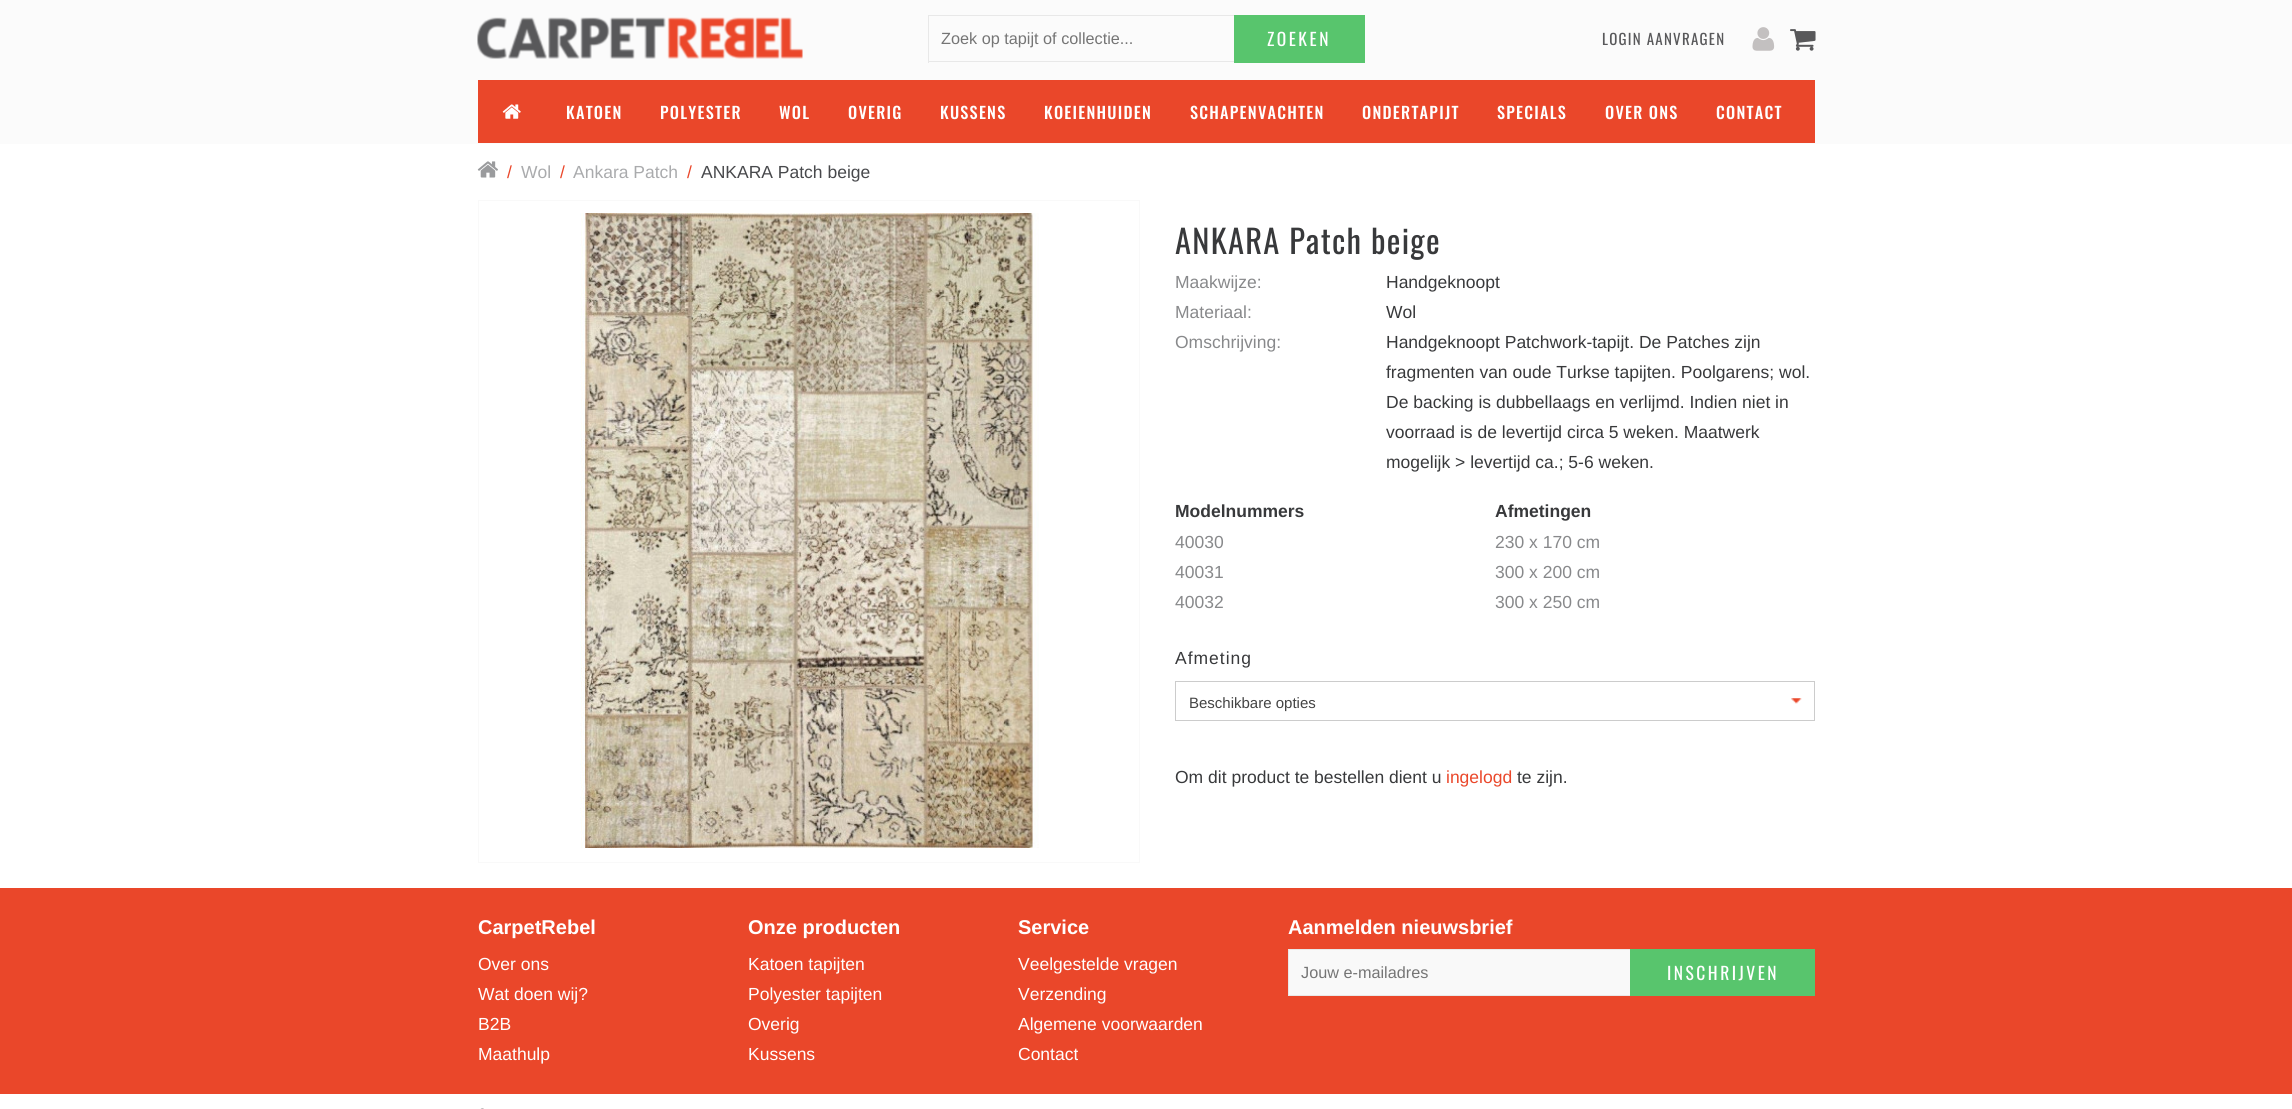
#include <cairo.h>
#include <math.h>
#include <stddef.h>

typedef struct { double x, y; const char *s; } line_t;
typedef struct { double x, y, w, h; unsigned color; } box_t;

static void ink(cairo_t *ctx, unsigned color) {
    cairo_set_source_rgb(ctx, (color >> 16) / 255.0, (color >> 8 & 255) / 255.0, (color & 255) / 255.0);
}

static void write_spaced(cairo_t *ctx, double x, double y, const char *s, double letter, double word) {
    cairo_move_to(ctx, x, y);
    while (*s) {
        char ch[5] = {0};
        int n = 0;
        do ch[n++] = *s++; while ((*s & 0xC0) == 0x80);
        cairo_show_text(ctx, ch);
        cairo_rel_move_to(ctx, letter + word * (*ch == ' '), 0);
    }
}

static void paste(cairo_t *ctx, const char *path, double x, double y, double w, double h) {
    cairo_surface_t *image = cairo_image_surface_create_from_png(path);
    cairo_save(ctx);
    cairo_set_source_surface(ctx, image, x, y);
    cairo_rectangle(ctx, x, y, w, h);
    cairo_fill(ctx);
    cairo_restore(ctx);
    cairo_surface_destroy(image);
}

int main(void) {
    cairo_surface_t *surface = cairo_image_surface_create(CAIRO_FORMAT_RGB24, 2292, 1109);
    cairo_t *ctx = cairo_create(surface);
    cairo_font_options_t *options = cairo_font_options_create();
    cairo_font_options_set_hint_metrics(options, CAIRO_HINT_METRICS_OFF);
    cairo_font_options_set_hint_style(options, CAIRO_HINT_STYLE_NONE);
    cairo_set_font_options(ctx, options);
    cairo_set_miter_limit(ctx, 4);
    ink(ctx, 0xFFFFFF);
    cairo_paint(ctx);
    ink(ctx, 0xFBFBFB);
    cairo_rectangle(ctx, 0, 0, 2292, 144);
    cairo_fill(ctx);
    paste(ctx, "media/1.png", 477, 17, 326, 42);
    {
        static const box_t items[] = {
            {928, 15, 306, 1, 0xE8E8E8},
            {928, 61, 306, 1, 0xE8E8E8},
            {928, 15, 1, 48, 0xE8E8E8},
        };
        for (size_t i = 0; i < sizeof items / sizeof *items; i++) {
            ink(ctx, items[i].color);
            cairo_rectangle(ctx, items[i].x, items[i].y, items[i].w, items[i].h);
            cairo_fill(ctx);
        }
    }
    cairo_select_font_face(ctx, "Liberation Sans", CAIRO_FONT_SLANT_NORMAL, CAIRO_FONT_WEIGHT_NORMAL);
    cairo_set_font_size(ctx, 16.25);
    ink(ctx, 0x757575);
    cairo_move_to(ctx, 941, 44);
    cairo_show_text(ctx, "Zoek op tapijt of collectie...");
    ink(ctx, 0x58C56D);
    cairo_rectangle(ctx, 1234, 15, 131, 48);
    cairo_fill(ctx);
    cairo_select_font_face(ctx, "Oswald", CAIRO_FONT_SLANT_NORMAL, CAIRO_FONT_WEIGHT_NORMAL);
    cairo_set_font_size(ctx, 17.5);
    ink(ctx, 0xFFFFFF);
    write_spaced(ctx, 1267, 46, "ZOEKEN", 2.5, 0);
    cairo_set_font_size(ctx, 15);
    ink(ctx, 0x58585A);
    write_spaced(ctx, 1602, 45, "LOGIN AANVRAGEN", 1.25, 0);
    paste(ctx, "media/2.png", 1752, 27, 23, 24);
    paste(ctx, "media/3.png", 1790, 29, 26, 22);
    ink(ctx, 0xEA472A);
    cairo_rectangle(ctx, 478, 80, 1337, 63);
    cairo_fill(ctx);
    paste(ctx, "media/4.png", 502, 104, 19, 15);
    cairo_select_font_face(ctx, "Oswald Medium", CAIRO_FONT_SLANT_NORMAL, CAIRO_FONT_WEIGHT_NORMAL);
    cairo_set_font_size(ctx, 16.25);
    ink(ctx, 0xFFFFFF);
    {
        static const line_t items[] = {
            {566, 119, "KATOEN"},
            {660, 119, "POLYESTER"},
            {779, 119, "WOL"},
            {848, 119, "OVERIG"},
            {940, 119, "KUSSENS"},
            {1044, 119, "KOEIENHUIDEN"},
            {1190, 119, "SCHAPENVACHTEN"},
            {1362, 119, "ONDERTAPIJT"},
            {1497, 119, "SPECIALS"},
            {1605, 119, "OVER ONS"},
            {1716, 119, "CONTACT"},
        };
        for (size_t i = 0; i < sizeof items / sizeof *items; i++) {
            write_spaced(ctx, items[i].x, items[i].y, items[i].s, 1.25, 0);
        }
    }
    paste(ctx, "media/5.png", 477, 161, 21, 17);
    cairo_select_font_face(ctx, "Liberation Sans", CAIRO_FONT_SLANT_NORMAL, CAIRO_FONT_WEIGHT_NORMAL);
    cairo_set_font_size(ctx, 17.5);
    ink(ctx, 0xEA472A);
    cairo_move_to(ctx, 507, 178);
    cairo_show_text(ctx, "/");
    ink(ctx, 0xAAABAD);
    cairo_move_to(ctx, 521, 178);
    cairo_show_text(ctx, "Wol");
    ink(ctx, 0xEA472A);
    cairo_move_to(ctx, 560, 178);
    cairo_show_text(ctx, "/");
    ink(ctx, 0xAAABAD);
    cairo_move_to(ctx, 573, 178);
    cairo_show_text(ctx, "Ankara Patch");
    ink(ctx, 0xEA472A);
    cairo_move_to(ctx, 687, 178);
    cairo_show_text(ctx, "/");
    ink(ctx, 0x48494C);
    cairo_move_to(ctx, 701, 178);
    cairo_show_text(ctx, "ANKARA Patch beige");
    cairo_rectangle(ctx, 478.5, 200.5, 661, 662);
    ink(ctx, 0xF9F9F9);
    cairo_set_line_width(ctx, 1);
    cairo_stroke(ctx);
    paste(ctx, "media/6.png", 580, 213, 459, 635);
    cairo_select_font_face(ctx, "Oswald", CAIRO_FONT_SLANT_NORMAL, CAIRO_FONT_WEIGHT_NORMAL);
    cairo_set_font_size(ctx, 32.5);
    ink(ctx, 0x38393B);
    write_spaced(ctx, 1175, 254, "ANKARA Patch beige", 1.25, 0);
    cairo_select_font_face(ctx, "Liberation Sans", CAIRO_FONT_SLANT_NORMAL, CAIRO_FONT_WEIGHT_NORMAL);
    cairo_set_font_size(ctx, 17.5);
    ink(ctx, 0x88898B);
    cairo_move_to(ctx, 1175, 288);
    cairo_show_text(ctx, "Maakwijze:");
    ink(ctx, 0x38393B);
    cairo_move_to(ctx, 1386, 288);
    cairo_show_text(ctx, "Handgeknoopt");
    ink(ctx, 0x88898B);
    cairo_move_to(ctx, 1175, 318);
    cairo_show_text(ctx, "Materiaal:");
    ink(ctx, 0x38393B);
    cairo_move_to(ctx, 1386, 318);
    cairo_show_text(ctx, "Wol");
    ink(ctx, 0x88898B);
    cairo_move_to(ctx, 1175, 348);
    cairo_show_text(ctx, "Omschrijving:");
    ink(ctx, 0x38393B);
    {
        static const line_t items[] = {
            {1386, 348, "Handgeknoopt Patchwork-tapijt. De Patches zijn"},
            {1386, 378, "fragmenten van oude Turkse tapijten. Poolgarens; wol."},
            {1386, 408, "De backing is dubbellaags en verlijmd. Indien niet in"},
            {1386, 438, "voorraad is de levertijd circa 5 weken. Maatwerk"},
            {1386, 468, "mogelijk > levertijd ca.; 5-6 weken."},
        };
        for (size_t i = 0; i < sizeof items / sizeof *items; i++) {
            cairo_move_to(ctx, items[i].x, items[i].y);
            cairo_show_text(ctx, items[i].s);
        }
    }
    cairo_select_font_face(ctx, "Liberation Sans", CAIRO_FONT_SLANT_NORMAL, CAIRO_FONT_WEIGHT_BOLD);
    cairo_move_to(ctx, 1175, 517);
    cairo_show_text(ctx, "Modelnummers");
    cairo_move_to(ctx, 1495, 517);
    cairo_show_text(ctx, "Afmetingen");
    cairo_select_font_face(ctx, "Liberation Sans", CAIRO_FONT_SLANT_NORMAL, CAIRO_FONT_WEIGHT_NORMAL);
    ink(ctx, 0x88898B);
    {
        static const line_t items[] = {
            {1175, 548, "40030"},
            {1175, 578, "40031"},
            {1175, 608, "40032"},
            {1495, 548, "230 x 170 cm"},
            {1495, 578, "300 x 200 cm"},
            {1495, 608, "300 x 250 cm"},
        };
        for (size_t i = 0; i < sizeof items / sizeof *items; i++) {
            cairo_move_to(ctx, items[i].x, items[i].y);
            cairo_show_text(ctx, items[i].s);
        }
    }
    ink(ctx, 0x38393B);
    write_spaced(ctx, 1175, 664, "Afmeting", 1, 0);
    paste(ctx, "media/7.png", 1791, 698, 11, 6);
    cairo_rectangle(ctx, 1175.5, 681.5, 639, 39);
    ink(ctx, 0xCCCCCC);
    cairo_stroke(ctx);
    cairo_set_font_size(ctx, 15);
    ink(ctx, 0x444444);
    cairo_move_to(ctx, 1189, 708);
    cairo_show_text(ctx, "Beschikbare opties");
    cairo_set_font_size(ctx, 17.5);
    ink(ctx, 0x38393B);
    cairo_move_to(ctx, 1175, 783);
    cairo_show_text(ctx, "Om dit product te bestellen dient u");
    ink(ctx, 0xEA472A);
    cairo_move_to(ctx, 1446, 783);
    cairo_show_text(ctx, "ingelogd");
    ink(ctx, 0x38393B);
    cairo_move_to(ctx, 1517, 783);
    cairo_show_text(ctx, "te zijn.");
    ink(ctx, 0xEA472A);
    cairo_rectangle(ctx, 0, 888, 2292, 206);
    cairo_fill(ctx);
    cairo_select_font_face(ctx, "Liberation Sans", CAIRO_FONT_SLANT_NORMAL, CAIRO_FONT_WEIGHT_BOLD);
    cairo_set_font_size(ctx, 20);
    ink(ctx, 0xFFFFFF);
    cairo_move_to(ctx, 478, 934);
    cairo_show_text(ctx, "CarpetRebel");
    cairo_select_font_face(ctx, "Liberation Sans", CAIRO_FONT_SLANT_NORMAL, CAIRO_FONT_WEIGHT_NORMAL);
    cairo_set_font_size(ctx, 17.5);
    {
        static const line_t items[] = {
            {478, 970, "Over ons"},
            {478, 1000, "Wat doen wij?"},
            {478, 1030, "B2B"},
            {478, 1060, "Maathulp"},
        };
        for (size_t i = 0; i < sizeof items / sizeof *items; i++) {
            cairo_move_to(ctx, items[i].x, items[i].y);
            cairo_show_text(ctx, items[i].s);
        }
    }
    cairo_select_font_face(ctx, "Liberation Sans", CAIRO_FONT_SLANT_NORMAL, CAIRO_FONT_WEIGHT_BOLD);
    cairo_set_font_size(ctx, 20);
    cairo_move_to(ctx, 748, 934);
    cairo_show_text(ctx, "Onze producten");
    cairo_select_font_face(ctx, "Liberation Sans", CAIRO_FONT_SLANT_NORMAL, CAIRO_FONT_WEIGHT_NORMAL);
    cairo_set_font_size(ctx, 17.5);
    {
        static const line_t items[] = {
            {748, 970, "Katoen tapijten"},
            {748, 1000, "Polyester tapijten"},
            {748, 1030, "Overig"},
            {748, 1060, "Kussens"},
        };
        for (size_t i = 0; i < sizeof items / sizeof *items; i++) {
            cairo_move_to(ctx, items[i].x, items[i].y);
            cairo_show_text(ctx, items[i].s);
        }
    }
    cairo_select_font_face(ctx, "Liberation Sans", CAIRO_FONT_SLANT_NORMAL, CAIRO_FONT_WEIGHT_BOLD);
    cairo_set_font_size(ctx, 20);
    cairo_move_to(ctx, 1018, 934);
    cairo_show_text(ctx, "Service");
    cairo_select_font_face(ctx, "Liberation Sans", CAIRO_FONT_SLANT_NORMAL, CAIRO_FONT_WEIGHT_NORMAL);
    cairo_set_font_size(ctx, 17.5);
    {
        static const line_t items[] = {
            {1018, 970, "Veelgestelde vragen"},
            {1018, 1000, "Verzending"},
            {1018, 1030, "Algemene voorwaarden"},
            {1018, 1060, "Contact"},
        };
        for (size_t i = 0; i < sizeof items / sizeof *items; i++) {
            cairo_move_to(ctx, items[i].x, items[i].y);
            cairo_show_text(ctx, items[i].s);
        }
    }
    cairo_select_font_face(ctx, "Liberation Sans", CAIRO_FONT_SLANT_NORMAL, CAIRO_FONT_WEIGHT_BOLD);
    cairo_set_font_size(ctx, 20);
    cairo_move_to(ctx, 1288, 934);
    cairo_show_text(ctx, "Aanmelden nieuwsbrief");
    {
        static const box_t items[] = {
            {1289, 950, 341, 45, 0xF9F9F9},
            {1288, 949, 342, 1, 0xE8E8E8},
            {1288, 995, 342, 1, 0xE8E8E8},
            {1288, 949, 1, 47, 0xE8E8E8},
        };
        for (size_t i = 0; i < sizeof items / sizeof *items; i++) {
            ink(ctx, items[i].color);
            cairo_rectangle(ctx, items[i].x, items[i].y, items[i].w, items[i].h);
            cairo_fill(ctx);
        }
    }
    cairo_select_font_face(ctx, "Liberation Sans", CAIRO_FONT_SLANT_NORMAL, CAIRO_FONT_WEIGHT_NORMAL);
    cairo_set_font_size(ctx, 16.25);
    ink(ctx, 0x757575);
    cairo_move_to(ctx, 1301, 978);
    cairo_show_text(ctx, "Jouw e-mailadres");
    ink(ctx, 0x58C56D);
    cairo_rectangle(ctx, 1630, 949, 185, 47);
    cairo_fill(ctx);
    cairo_select_font_face(ctx, "Oswald", CAIRO_FONT_SLANT_NORMAL, CAIRO_FONT_WEIGHT_NORMAL);
    cairo_set_font_size(ctx, 17.5);
    ink(ctx, 0xFFFFFF);
    write_spaced(ctx, 1667, 980, "INSCHRIJVEN", 2.5, 0);
    paste(ctx, "media/8.png", 480, 1108, 4, 1);
    cairo_surface_write_to_png(surface, "image.png");
    cairo_font_options_destroy(options);
    cairo_destroy(ctx);
    cairo_surface_destroy(surface);
    return 0;
}
